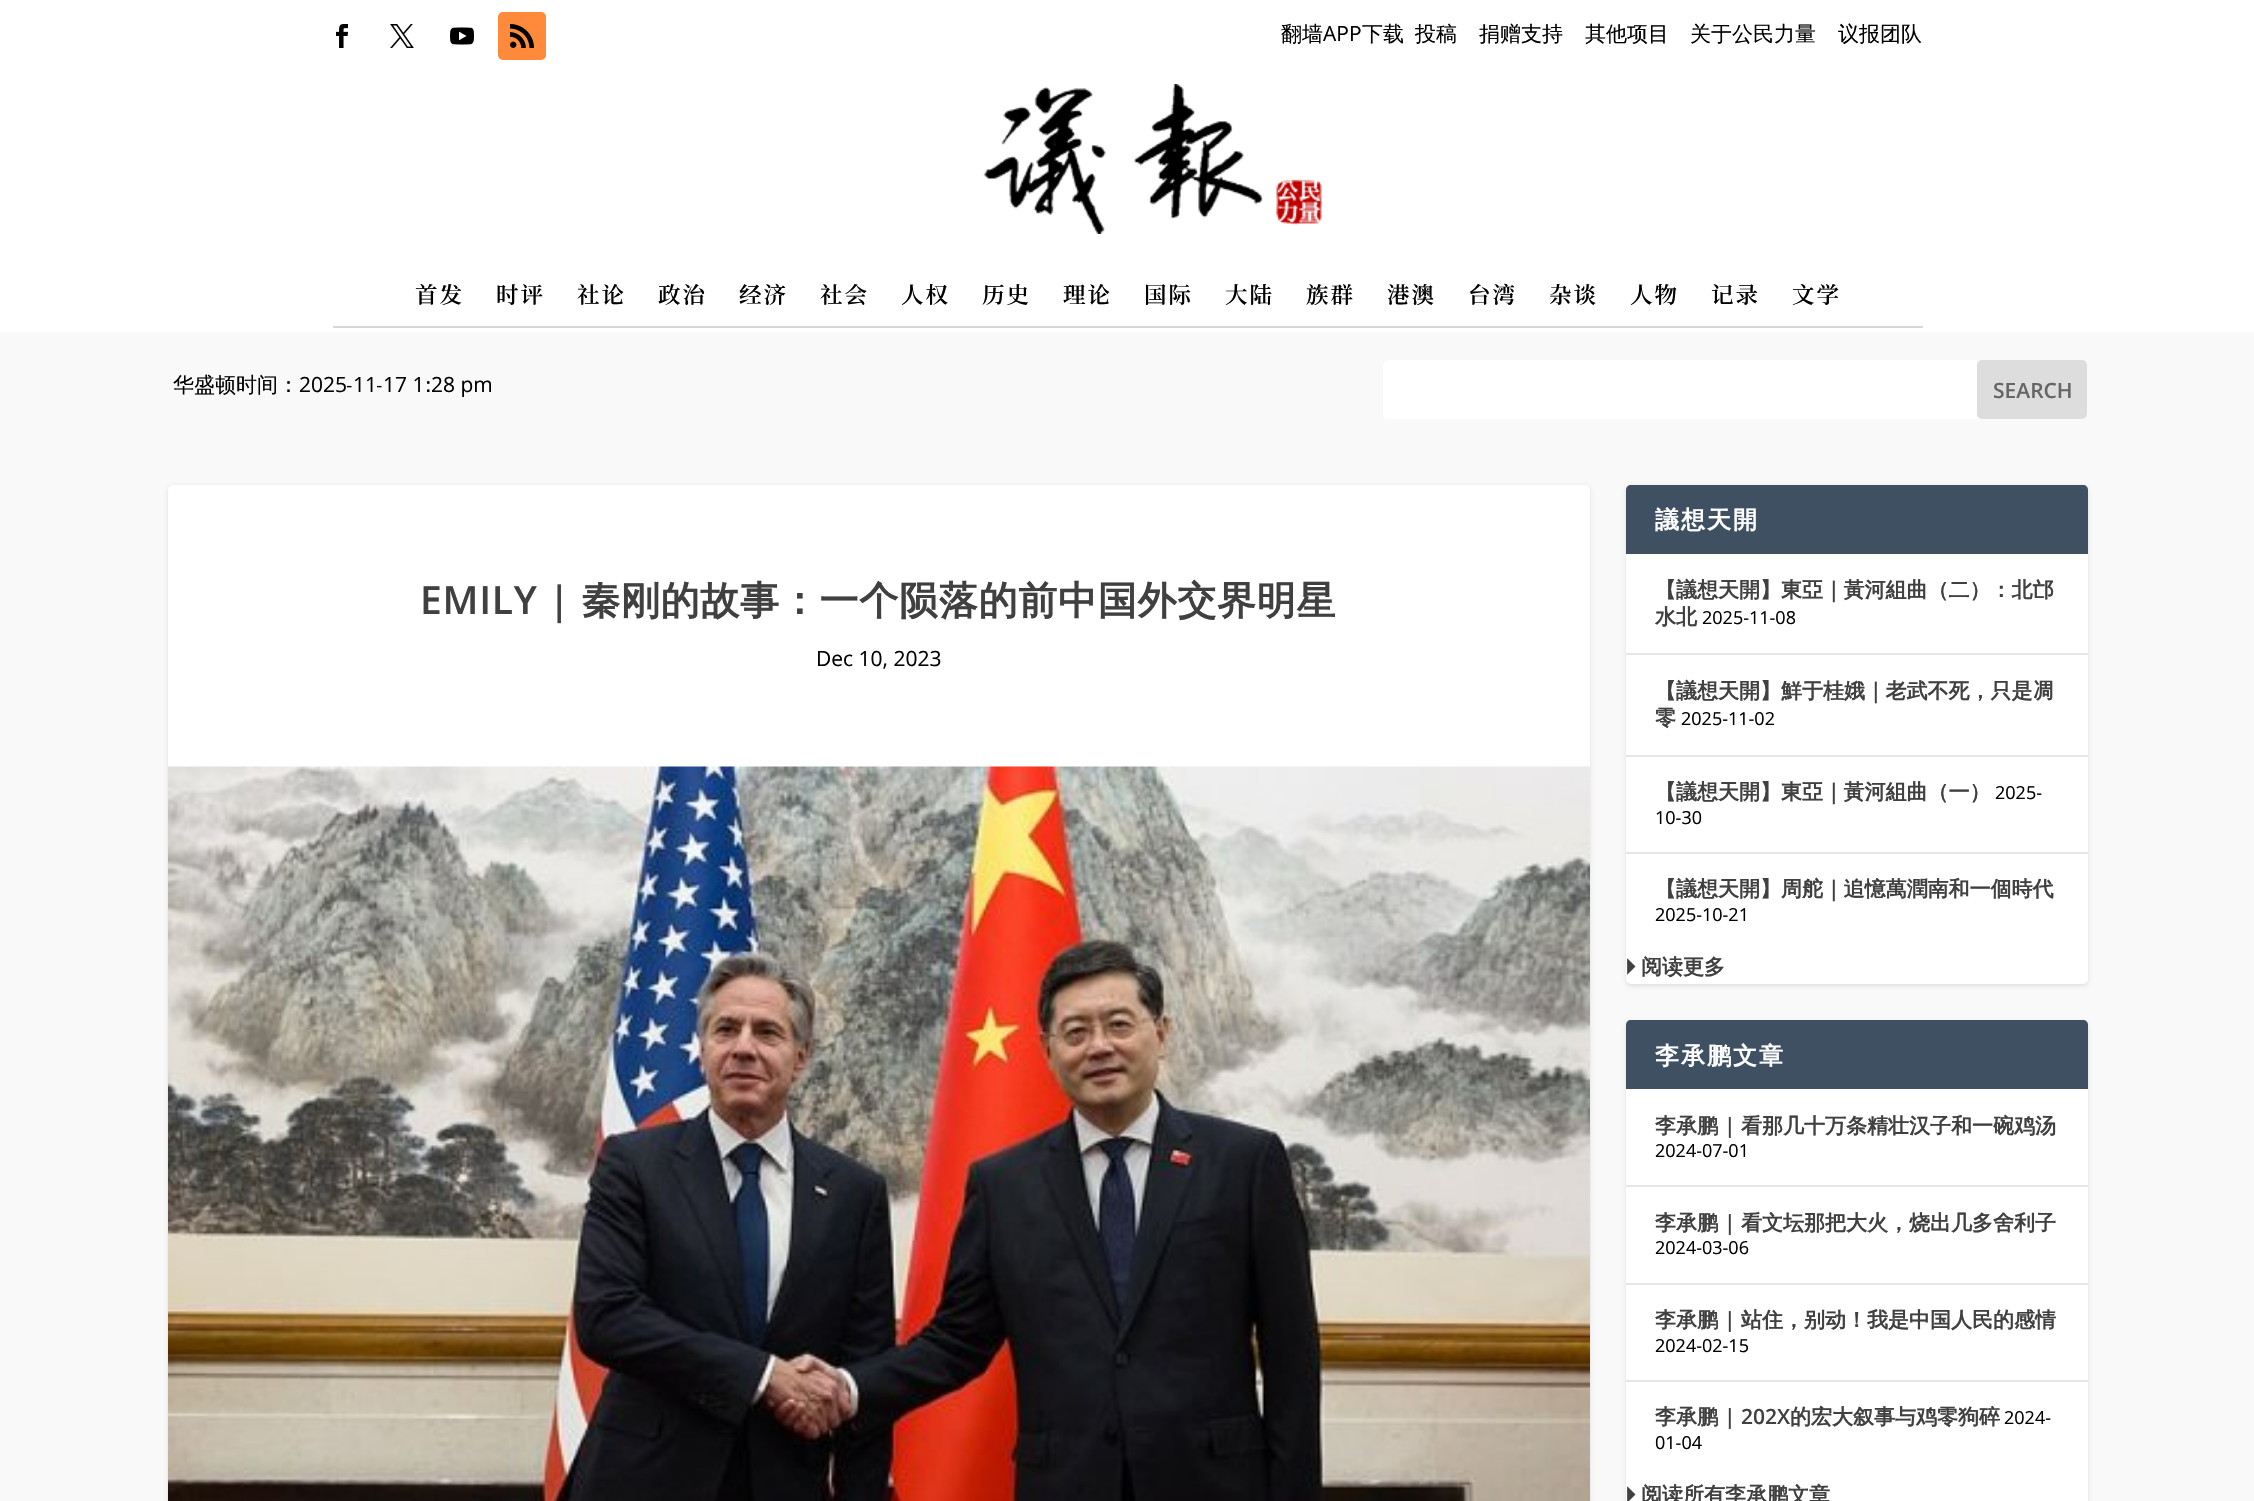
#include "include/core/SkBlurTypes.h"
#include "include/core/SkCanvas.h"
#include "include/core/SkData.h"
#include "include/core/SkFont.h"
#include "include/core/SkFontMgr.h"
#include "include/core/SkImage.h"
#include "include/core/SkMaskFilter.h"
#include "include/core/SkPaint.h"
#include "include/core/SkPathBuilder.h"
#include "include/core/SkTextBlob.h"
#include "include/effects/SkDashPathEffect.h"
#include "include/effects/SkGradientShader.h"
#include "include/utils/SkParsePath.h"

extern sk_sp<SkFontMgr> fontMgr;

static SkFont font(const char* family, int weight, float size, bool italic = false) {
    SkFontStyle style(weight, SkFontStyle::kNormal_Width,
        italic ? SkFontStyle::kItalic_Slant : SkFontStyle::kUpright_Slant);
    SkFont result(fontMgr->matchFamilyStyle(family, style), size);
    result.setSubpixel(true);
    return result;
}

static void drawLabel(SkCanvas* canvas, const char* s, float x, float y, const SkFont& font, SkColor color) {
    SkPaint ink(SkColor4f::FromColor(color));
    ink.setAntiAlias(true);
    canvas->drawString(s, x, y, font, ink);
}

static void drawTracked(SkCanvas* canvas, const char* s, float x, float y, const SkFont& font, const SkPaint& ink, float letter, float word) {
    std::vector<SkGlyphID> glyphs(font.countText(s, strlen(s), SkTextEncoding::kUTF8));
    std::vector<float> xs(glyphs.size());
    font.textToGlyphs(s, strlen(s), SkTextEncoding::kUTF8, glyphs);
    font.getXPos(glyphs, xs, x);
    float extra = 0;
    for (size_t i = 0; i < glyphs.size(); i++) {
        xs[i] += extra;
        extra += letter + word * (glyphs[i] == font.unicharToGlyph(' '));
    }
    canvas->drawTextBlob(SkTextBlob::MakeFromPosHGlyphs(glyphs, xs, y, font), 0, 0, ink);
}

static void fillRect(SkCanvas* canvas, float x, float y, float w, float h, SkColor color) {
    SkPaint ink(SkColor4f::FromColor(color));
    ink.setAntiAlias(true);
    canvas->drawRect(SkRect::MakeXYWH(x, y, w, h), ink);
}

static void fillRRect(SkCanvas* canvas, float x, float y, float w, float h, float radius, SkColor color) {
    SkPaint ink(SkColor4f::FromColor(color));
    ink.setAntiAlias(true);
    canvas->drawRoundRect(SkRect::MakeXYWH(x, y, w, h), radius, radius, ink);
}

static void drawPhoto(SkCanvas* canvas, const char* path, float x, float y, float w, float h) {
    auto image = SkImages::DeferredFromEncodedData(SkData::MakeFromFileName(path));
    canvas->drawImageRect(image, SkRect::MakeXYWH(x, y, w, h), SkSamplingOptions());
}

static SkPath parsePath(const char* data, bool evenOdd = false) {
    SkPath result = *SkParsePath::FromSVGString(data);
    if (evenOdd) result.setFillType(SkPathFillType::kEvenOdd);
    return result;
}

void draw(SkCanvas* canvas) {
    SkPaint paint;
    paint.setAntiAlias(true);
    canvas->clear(0xFFF9F9F9);
    fillRect(canvas, 0, 0, 2254, 332, 0xFFFFFFFF);
    drawPhoto(canvas, "assets/img1.png", 336, 24, 13, 24);
    drawPhoto(canvas, "assets/img2.png", 390, 24, 24, 24);
    drawPhoto(canvas, "assets/img3.png", 450, 27, 24, 18);
    fillRRect(canvas, 498, 12, 48, 48, 5, 0xFFFF8A3C);
    drawPhoto(canvas, "assets/img4.png", 510, 24, 24, 24);
    SkFont font1 = font("WenQuanYi Zen Hei", 500, 21);
    drawLabel(canvas, "翻墙", 1281, 41, font1, 0xFF000000);
    SkFont font2 = font("Open Sans", 400, 21);
    drawLabel(canvas, "APP", 1323, 41, font2, 0xFF000000);
    drawLabel(canvas, "下载", 1362, 41, font1, 0xFF000000);
    drawLabel(canvas, "投稿", 1415, 41, font1, 0xFF000000);
    drawLabel(canvas, "捐赠支持", 1479, 41, font1, 0xFF000000);
    drawLabel(canvas, "其他项目", 1585, 41, font1, 0xFF000000);
    drawLabel(canvas, "关于公民力量", 1690, 41, font1, 0xFF000000);
    drawLabel(canvas, "议报团队", 1838, 41, font1, 0xFF000000);
    drawPhoto(canvas, "assets/img5.png", 983, 84, 339, 150);
    fillRect(canvas, 333, 326, 1590, 2, 0xFFD6D6D6);
    SkFont font3 = font("Noto Serif SC", 600, 22.5f);
    paint.setColor(0xFF000000);
    drawTracked(canvas, "首发", 415, 303, font3, paint, 2, 0);
    drawTracked(canvas, "时评", 496, 303, font3, paint, 2, 0);
    drawTracked(canvas, "社论", 577, 303, font3, paint, 2, 0);
    drawTracked(canvas, "政治", 658, 303, font3, paint, 2, 0);
    drawTracked(canvas, "经济", 739, 303, font3, paint, 2, 0);
    drawTracked(canvas, "社会", 820, 303, font3, paint, 2, 0);
    drawTracked(canvas, "人权", 901, 303, font3, paint, 2, 0);
    drawTracked(canvas, "历史", 982, 303, font3, paint, 2, 0);
    drawTracked(canvas, "理论", 1063, 303, font3, paint, 2, 0);
    drawTracked(canvas, "国际", 1144, 303, font3, paint, 2, 0);
    drawTracked(canvas, "大陆", 1225, 303, font3, paint, 2, 0);
    drawTracked(canvas, "族群", 1306, 303, font3, paint, 2, 0);
    drawTracked(canvas, "港澳", 1387, 303, font3, paint, 2, 0);
    drawTracked(canvas, "台湾", 1468, 303, font3, paint, 2, 0);
    drawTracked(canvas, "杂谈", 1549, 303, font3, paint, 2, 0);
    drawTracked(canvas, "人物", 1630, 303, font3, paint, 2, 0);
    drawTracked(canvas, "记录", 1711, 303, font3, paint, 2, 0);
    drawTracked(canvas, "文学", 1792, 303, font3, paint, 2, 0);
    drawLabel(canvas, "华盛顿时间：", 173, 392, font1, 0xFF000000);
    drawLabel(canvas, "2025", 299, 392, font2, 0xFF000000);
    drawLabel(canvas, "-", 347, 392, font1, 0xFF000000);
    drawLabel(canvas, "11", 353, 392, font2, 0xFF000000);
    drawLabel(canvas, "-", 377, 392, font1, 0xFF000000);
    drawLabel(canvas, "17 1", 383, 392, font2, 0xFF000000);
    drawLabel(canvas, ":", 425, 392, font1, 0xFF000000);
    drawLabel(canvas, "28 pm", 431, 392, font2, 0xFF000000);
    fillRRect(canvas, 1383, 360, 704, 59, 5, 0xFFFFFFFF);
    fillRRect(canvas, 1977, 360, 110, 59, 5, 0xFFDDDDDD);
    SkFont font4 = font("Open Sans", 600, 21);
    drawLabel(canvas, "SEARCH", 1993, 398, font4, 0xFF666666);
    paint.setColor(0x1A000000);
    paint.setMaskFilter(SkMaskFilter::MakeBlur(kNormal_SkBlurStyle, 2));
    canvas->drawRoundRect(SkRect::MakeXYWH(168, 486, 1422, 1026), 5, 5, paint);
    paint.setMaskFilter(nullptr);
    fillRRect(canvas, 168, 485, 1422, 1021, 5, 0xFFFFFFFF);
    SkFont font5 = font("Open Sans", 600, 39);
    paint.setColor(0xFF404040);
    drawTracked(canvas, "EMILY |", 420, 614, font5, paint, 0.75f, 0);
    SkFont font6 = font("WenQuanYi Zen Hei", 700, 39);
    drawTracked(canvas, "秦刚的故事：一个陨落的前中国外交界明星", 581, 614, font6, paint, 0.75f, 0);
    drawLabel(canvas, "Dec 10, 2023", 816, 666, font2, 0xFF000000);
    drawPhoto(canvas, "assets/img6.png", 168, 766, 1422, 735);
    paint.setColor(0x1A000000);
    paint.setMaskFilter(SkMaskFilter::MakeBlur(kNormal_SkBlurStyle, 2));
    canvas->drawRoundRect(SkRect::MakeXYWH(1626, 486, 462, 500), 5, 5, paint);
    paint.setMaskFilter(nullptr);
    fillRRect(canvas, 1626, 485, 462, 499, 5, 0xFFFFFFFF);
    paint.setColor(0xFF3E5062);
    canvas->drawPath(parsePath("M1631 485H2083C2086 485 2088 487 2088 490V554H1626V490C1626 487 1628 485 1631 485Z"), paint);
    SkFont font7 = font("WenQuanYi Zen Hei", 700, 24);
    paint.setColor(0xFFFFFFFF);
    drawTracked(canvas, "議想天開", 1655, 528, font7, paint, 2, 0);
    fillRect(canvas, 1626, 653, 462, 2, 0xFFE6E6E6);
    SkFont font8 = font("WenQuanYi Zen Hei", 700, 21);
    drawLabel(canvas, "【議想天開】東亞｜黃河組曲（二）：北邙", 1655, 597, font8, 0xFF404040);
    drawLabel(canvas, "水北", 1655, 624, font8, 0xFF404040);
    SkFont font9 = font("Open Sans", 400, 18);
    drawLabel(canvas, "2025-11-08", 1702, 624, font9, 0xFF000000);
    fillRect(canvas, 1626, 755, 462, 2, 0xFFE6E6E6);
    drawLabel(canvas, "【議想天開】鮮于桂娥｜老武不死，只是凋", 1655, 698, font8, 0xFF404040);
    drawLabel(canvas, "零", 1655, 725, font8, 0xFF404040);
    drawLabel(canvas, "2025-11-02", 1681, 725, font9, 0xFF000000);
    fillRect(canvas, 1626, 852, 462, 2, 0xFFE6E6E6);
    drawLabel(canvas, "【議想天開】東亞｜黃河組曲（一）", 1655, 799, font8, 0xFF404040);
    drawLabel(canvas, "2025-", 1995, 799, font9, 0xFF000000);
    drawLabel(canvas, "10-30", 1655, 824, font9, 0xFF000000);
    drawLabel(canvas, "【議想天開】周舵｜追憶萬潤南和一個時代", 1655, 896, font8, 0xFF404040);
    drawLabel(canvas, "2025-10-21", 1655, 921, font9, 0xFF000000);
    SkFont font10 = font("FreeSans", 700, 21);
    drawLabel(canvas, "⏵", 1625, 974, font10, 0xFF404040);
    drawLabel(canvas, "阅读更多", 1641, 974, font8, 0xFF404040);
    paint.setColor(0x1A000000);
    paint.setMaskFilter(SkMaskFilter::MakeBlur(kNormal_SkBlurStyle, 2));
    canvas->drawRoundRect(SkRect::MakeXYWH(1626, 1022, 462, 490), 5, 5, paint);
    paint.setMaskFilter(nullptr);
    fillRRect(canvas, 1626, 1020, 462, 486, 5, 0xFFFFFFFF);
    paint.setColor(0xFF3E5062);
    canvas->drawPath(parsePath("M1631 1020H2083C2086 1020 2088 1022 2088 1025V1089H1626V1025C1626 1022 1628 1020 1631 1020Z"), paint);
    paint.setColor(0xFFFFFFFF);
    drawTracked(canvas, "李承鹏文章", 1655, 1064, font7, paint, 2, 0);
    fillRect(canvas, 1626, 1185, 462, 2, 0xFFE6E6E6);
    drawLabel(canvas, "李承鹏", 1655, 1133, font8, 0xFF404040);
    drawLabel(canvas, "|", 1724, 1133, font4, 0xFF404040);
    drawLabel(canvas, "看那几十万条精壮汉子和一碗鸡汤", 1741, 1133, font8, 0xFF404040);
    drawLabel(canvas, "2024-07-01", 1655, 1157, font9, 0xFF000000);
    fillRect(canvas, 1626, 1283, 462, 2, 0xFFE6E6E6);
    drawLabel(canvas, "李承鹏", 1655, 1230, font8, 0xFF404040);
    drawLabel(canvas, "|", 1724, 1230, font4, 0xFF404040);
    drawLabel(canvas, "看文坛那把大火，烧出几多舍利子", 1741, 1230, font8, 0xFF404040);
    drawLabel(canvas, "2024-03-06", 1655, 1254, font9, 0xFF000000);
    fillRect(canvas, 1626, 1380, 462, 2, 0xFFE6E6E6);
    drawLabel(canvas, "李承鹏", 1655, 1327, font8, 0xFF404040);
    drawLabel(canvas, "|", 1724, 1327, font4, 0xFF404040);
    drawLabel(canvas, "站住，别动！我是中国人民的感情", 1741, 1327, font8, 0xFF404040);
    drawLabel(canvas, "2024-02-15", 1655, 1352, font9, 0xFF000000);
    drawLabel(canvas, "李承鹏", 1655, 1424, font8, 0xFF404040);
    drawLabel(canvas, "| 202X", 1724, 1424, font4, 0xFF404040);
    drawLabel(canvas, "的宏大叙事与鸡零狗碎", 1790, 1424, font8, 0xFF404040);
    drawLabel(canvas, "2024-", 2004, 1424, font9, 0xFF000000);
    drawLabel(canvas, "01-04", 1655, 1449, font9, 0xFF000000);
    drawLabel(canvas, "⏵", 1625, 1502, font10, 0xFF404040);
    drawLabel(canvas, "阅读所有李承鹏文章", 1641, 1502, font8, 0xFF404040);
}
